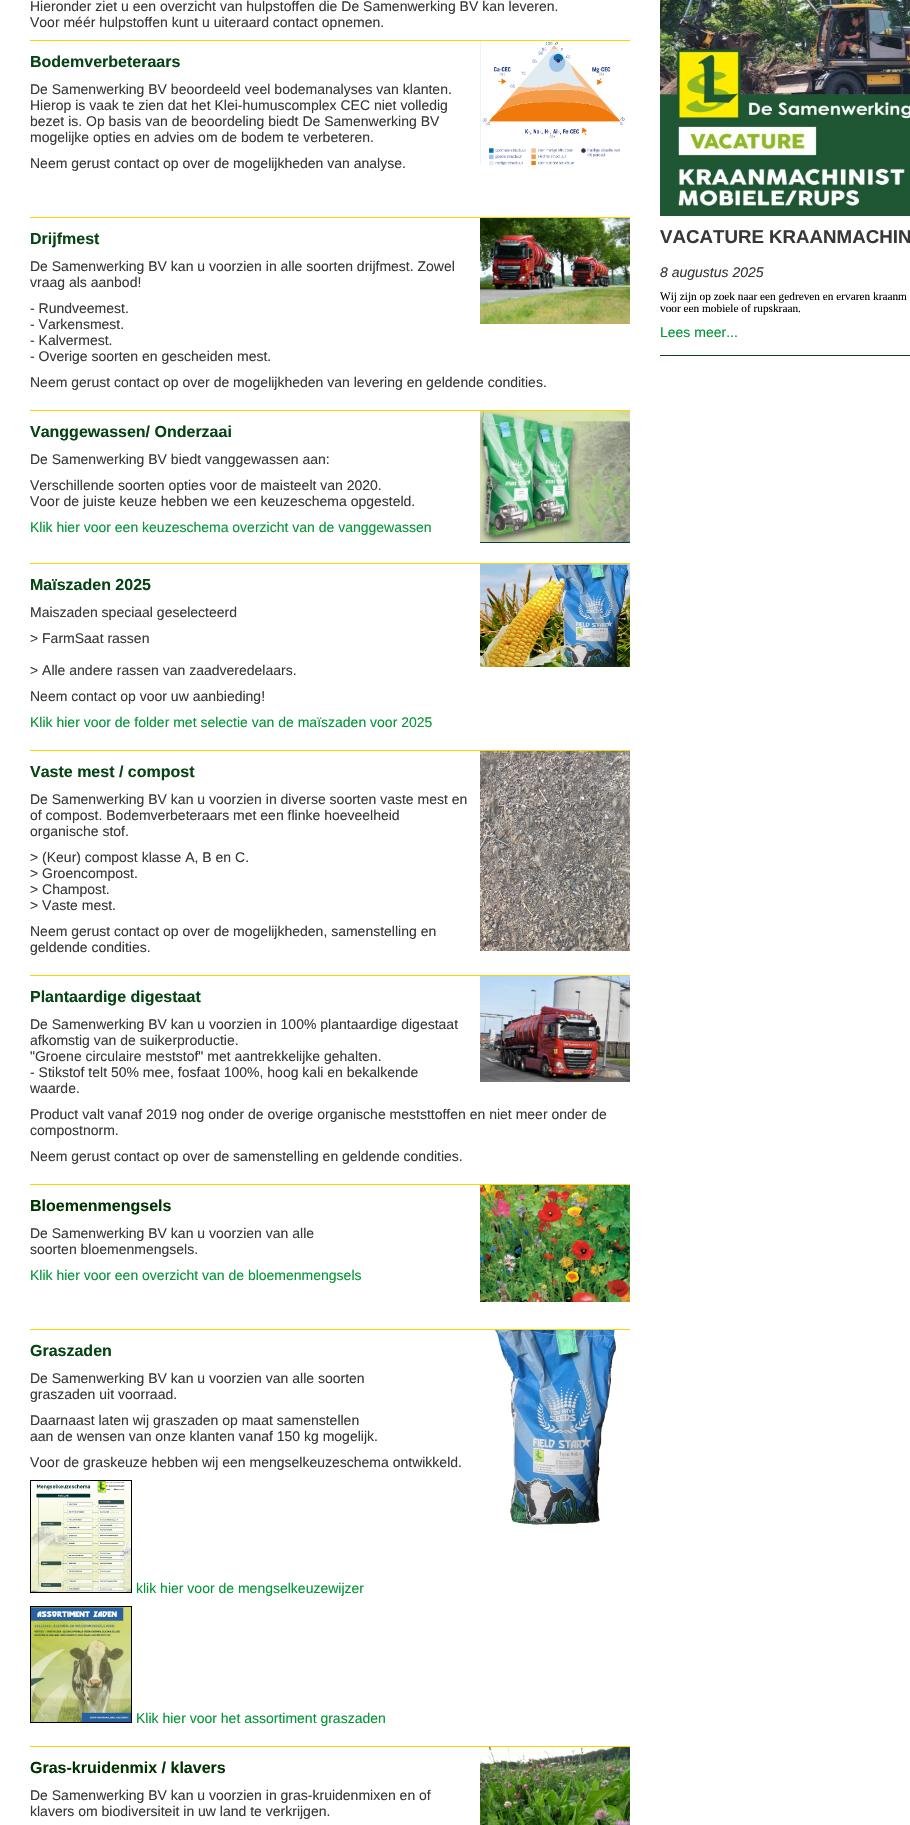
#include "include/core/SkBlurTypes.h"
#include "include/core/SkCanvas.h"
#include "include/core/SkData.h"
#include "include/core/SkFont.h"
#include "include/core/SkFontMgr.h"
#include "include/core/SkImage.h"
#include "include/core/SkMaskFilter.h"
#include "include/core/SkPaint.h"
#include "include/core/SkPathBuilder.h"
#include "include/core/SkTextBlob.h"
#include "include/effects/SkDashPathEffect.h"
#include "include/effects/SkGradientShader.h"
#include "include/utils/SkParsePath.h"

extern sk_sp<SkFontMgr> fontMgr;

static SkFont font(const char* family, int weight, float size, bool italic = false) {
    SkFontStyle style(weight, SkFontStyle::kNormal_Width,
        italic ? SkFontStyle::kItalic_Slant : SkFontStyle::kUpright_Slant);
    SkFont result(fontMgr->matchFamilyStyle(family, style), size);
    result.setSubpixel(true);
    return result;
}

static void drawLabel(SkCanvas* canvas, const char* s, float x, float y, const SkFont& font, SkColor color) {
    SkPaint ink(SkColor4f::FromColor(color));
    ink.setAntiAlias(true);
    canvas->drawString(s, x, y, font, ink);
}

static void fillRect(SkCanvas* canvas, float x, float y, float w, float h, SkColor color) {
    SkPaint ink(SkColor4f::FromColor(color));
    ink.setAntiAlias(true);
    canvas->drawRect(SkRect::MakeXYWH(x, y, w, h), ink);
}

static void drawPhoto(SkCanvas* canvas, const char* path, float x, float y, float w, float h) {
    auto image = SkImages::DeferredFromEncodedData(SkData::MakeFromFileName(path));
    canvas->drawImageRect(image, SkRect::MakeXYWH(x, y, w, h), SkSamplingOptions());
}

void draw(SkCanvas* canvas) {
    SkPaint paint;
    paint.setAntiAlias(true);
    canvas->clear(0xFFFFFFFF);
    SkFont font1 = font("Liberation Sans", 400, 14);
    drawLabel(canvas, "Hieronder ziet u een overzicht van hulpstoffen die De Samenwerking BV kan leveren.", 30, 11, font1, 0xFF38373A);
    drawLabel(canvas, "Voor méér hulpstoffen kunt u uiteraard contact opnemen.", 30, 27, font1, 0xFF38373A);
    fillRect(canvas, 30, 40, 600, 1, 0xFFFFD300);
    SkFont font2 = font("Liberation Sans", 700, 16);
    drawLabel(canvas, "Bodemverbeteraars", 30, 67, font2, 0xFF064413);
    drawPhoto(canvas, "assets/img1.png", 480, 41, 145, 124);
    drawLabel(canvas, "De Samenwerking BV beoordeeld veel bodemanalyses van klanten.", 30, 94, font1, 0xFF38373A);
    drawLabel(canvas, "Hierop is vaak te zien dat het Klei-humuscomplex CEC niet volledig", 30, 110, font1, 0xFF38373A);
    drawLabel(canvas, "bezet is. Op basis van de beoordeling biedt De Samenwerking BV", 30, 126, font1, 0xFF38373A);
    drawLabel(canvas, "mogelijke opties en advies om de bodem te verbeteren.", 30, 142, font1, 0xFF38373A);
    drawLabel(canvas, "Neem gerust contact op over de mogelijkheden van analyse.", 30, 168, font1, 0xFF38373A);
    fillRect(canvas, 30, 217, 600, 1, 0xFFFFD300);
    drawLabel(canvas, "Drijfmest", 30, 244, font2, 0xFF064413);
    drawPhoto(canvas, "assets/img2.png", 480, 218, 150, 106);
    drawLabel(canvas, "De Samenwerking BV kan u voorzien in alle soorten drijfmest. Zowel", 30, 271, font1, 0xFF38373A);
    drawLabel(canvas, "vraag als aanbod!", 30, 287, font1, 0xFF38373A);
    drawLabel(canvas, "- Rundveemest.", 30, 313, font1, 0xFF38373A);
    drawLabel(canvas, "- Varkensmest.", 30, 329, font1, 0xFF38373A);
    drawLabel(canvas, "- Kalvermest.", 30, 345, font1, 0xFF38373A);
    drawLabel(canvas, "- Overige soorten en gescheiden mest.", 30, 361, font1, 0xFF38373A);
    drawLabel(canvas, "Neem gerust contact op over de mogelijkheden van levering en geldende condities.", 30, 387, font1, 0xFF38373A);
    fillRect(canvas, 30, 410, 600, 1, 0xFFFFD300);
    drawLabel(canvas, "Vanggewassen/ Onderzaai", 30, 437, font2, 0xFF064413);
    drawPhoto(canvas, "assets/img3.png", 480, 411, 150, 132);
    drawLabel(canvas, "De Samenwerking BV biedt vanggewassen aan:", 30, 464, font1, 0xFF38373A);
    drawLabel(canvas, "Verschillende soorten opties voor de maisteelt van 2020.", 30, 490, font1, 0xFF38373A);
    drawLabel(canvas, "Voor de juiste keuze hebben we een keuzeschema opgesteld.", 30, 506, font1, 0xFF38373A);
    drawLabel(canvas, "Klik hier voor een keuzeschema overzicht van de vanggewassen", 30, 532, font1, 0xFF019535);
    fillRect(canvas, 30, 563, 600, 1, 0xFFFFD300);
    drawLabel(canvas, "Maïszaden 2025", 30, 590, font2, 0xFF064413);
    drawPhoto(canvas, "assets/img4.png", 480, 564, 150, 103);
    drawLabel(canvas, "Maiszaden speciaal geselecteerd", 30, 617, font1, 0xFF38373A);
    drawLabel(canvas, "> FarmSaat rassen", 30, 643, font1, 0xFF38373A);
    drawLabel(canvas, "> Alle andere rassen van zaadveredelaars.", 30, 675, font1, 0xFF38373A);
    drawLabel(canvas, "Neem contact op voor uw aanbieding!", 30, 701, font1, 0xFF38373A);
    drawLabel(canvas, "Klik hier voor de folder met selectie van de maïszaden voor 2025", 30, 727, font1, 0xFF019535);
    fillRect(canvas, 30, 750, 600, 1, 0xFFFFD300);
    drawLabel(canvas, "Vaste mest / compost", 30, 777, font2, 0xFF064413);
    drawPhoto(canvas, "assets/img5.png", 480, 751, 150, 200);
    drawLabel(canvas, "De Samenwerking BV kan u voorzien in diverse soorten vaste mest en", 30, 804, font1, 0xFF38373A);
    drawLabel(canvas, "of compost. Bodemverbeteraars met een flinke hoeveelheid", 30, 820, font1, 0xFF38373A);
    drawLabel(canvas, "organische stof.", 30, 836, font1, 0xFF38373A);
    drawLabel(canvas, "> (Keur) compost klasse A, B en C.", 30, 862, font1, 0xFF38373A);
    drawLabel(canvas, "> Groencompost.", 30, 878, font1, 0xFF38373A);
    drawLabel(canvas, "> Champost.", 30, 894, font1, 0xFF38373A);
    drawLabel(canvas, "> Vaste mest.", 30, 910, font1, 0xFF38373A);
    drawLabel(canvas, "Neem gerust contact op over de mogelijkheden, samenstelling en", 30, 936, font1, 0xFF38373A);
    drawLabel(canvas, "geldende condities.", 30, 952, font1, 0xFF38373A);
    fillRect(canvas, 30, 975, 600, 1, 0xFFFFD300);
    drawLabel(canvas, "Plantaardige digestaat", 30, 1002, font2, 0xFF064413);
    drawPhoto(canvas, "assets/img6.png", 480, 976, 150, 106);
    drawLabel(canvas, "De Samenwerking BV kan u voorzien in 100% plantaardige digestaat", 30, 1029, font1, 0xFF38373A);
    drawLabel(canvas, "afkomstig van de suikerproductie.", 30, 1045, font1, 0xFF38373A);
    drawLabel(canvas, "\"Groene circulaire meststof\" met aantrekkelijke gehalten.", 30, 1061, font1, 0xFF38373A);
    drawLabel(canvas, "- Stikstof telt 50% mee, fosfaat 100%, hoog kali en bekalkende", 30, 1077, font1, 0xFF38373A);
    drawLabel(canvas, "waarde.", 30, 1093, font1, 0xFF38373A);
    drawLabel(canvas, "Product valt vanaf 2019 nog onder de overige organische meststtoffen en niet meer onder de", 30, 1119, font1, 0xFF38373A);
    drawLabel(canvas, "compostnorm.", 30, 1135, font1, 0xFF38373A);
    drawLabel(canvas, "Neem gerust contact op over de samenstelling en geldende condities.", 30, 1161, font1, 0xFF38373A);
    fillRect(canvas, 30, 1184, 600, 1, 0xFFFFD300);
    drawLabel(canvas, "Bloemenmengsels", 30, 1211, font2, 0xFF003300);
    drawPhoto(canvas, "assets/img7.png", 480, 1185, 150, 117);
    drawLabel(canvas, "De Samenwerking BV kan u voorzien van alle", 30, 1238, font1, 0xFF38373A);
    drawLabel(canvas, "soorten bloemenmengsels.", 30, 1254, font1, 0xFF38373A);
    drawLabel(canvas, "Klik hier voor een overzicht van de bloemenmengsels", 30, 1280, font1, 0xFF019535);
    fillRect(canvas, 30, 1329, 600, 1, 0xFFFFD300);
    drawLabel(canvas, "Graszaden", 30, 1356, font2, 0xFF064413);
    drawPhoto(canvas, "assets/img8.png", 480, 1330, 136, 195);
    drawLabel(canvas, "De Samenwerking BV kan u voorzien van alle soorten", 30, 1383, font1, 0xFF38373A);
    drawLabel(canvas, "graszaden uit voorraad.", 30, 1399, font1, 0xFF38373A);
    drawLabel(canvas, "Daarnaast laten wij graszaden op maat samenstellen", 30, 1425, font1, 0xFF38373A);
    drawLabel(canvas, "aan de wensen van onze klanten vanaf 150 kg mogelijk.", 30, 1441, font1, 0xFF38373A);
    drawLabel(canvas, "Voor de graskeuze hebben wij een mengselkeuzeschema ontwikkeld.", 30, 1467, font1, 0xFF38373A);
    paint.setStroke(true);
    paint.setStrokeWidth(1);
    paint.setColor(0xFF000000);
    canvas->drawRect(SkRect::MakeXYWH(30.5f, 1480.5f, 101, 112), paint);
    drawPhoto(canvas, "assets/img9.png", 31, 1481, 100, 111);
    drawLabel(canvas, "klik hier voor de mengselkeuzewijzer", 136, 1593, font1, 0xFF019535);
    canvas->drawRect(SkRect::MakeXYWH(30.5f, 1606.5f, 101, 116), paint);
    drawPhoto(canvas, "assets/img10.png", 31, 1607, 100, 115);
    drawLabel(canvas, "Klik hier voor het assortiment graszaden", 136, 1723, font1, 0xFF019535);
    fillRect(canvas, 30, 1746, 600, 1, 0xFFFFD300);
    drawLabel(canvas, "Gras-kruidenmix / klavers", 30, 1773, font2, 0xFF003300);
    drawPhoto(canvas, "assets/img11.png", 480, 1747, 150, 78);
    drawLabel(canvas, "De Samenwerking BV kan u voorzien in gras-kruidenmixen en of", 30, 1800, font1, 0xFF38373A);
    drawLabel(canvas, "klavers om biodiversiteit in uw land te verkrijgen.", 30, 1816, font1, 0xFF38373A);
    fillRect(canvas, 660, 355, 250, 1, 0xFF064413);
    drawPhoto(canvas, "assets/img12.png", 660, 0, 250, 216);
    SkFont font3 = font("Liberation Sans", 700, 18.7f);
    drawLabel(canvas, "VACATURE KRAANMACHIN", 660, 243, font3, 0xFF38373A);
    SkFont font4 = font("Liberation Sans", 400, 14, true);
    drawLabel(canvas, "8 augustus 2025", 660, 277, font4, 0xFF38373A);
    SkFont font5 = font("Liberation Serif", 400, 11.3f);
    drawLabel(canvas, "Wij zijn op zoek naar een gedreven en ervaren kraanm", 660, 300, font5, 0xFF000000);
    drawLabel(canvas, "voor een mobiele of rupskraan.", 660, 312, font5, 0xFF000000);
    drawLabel(canvas, "Lees meer...", 660, 337, font1, 0xFF019535);
}
